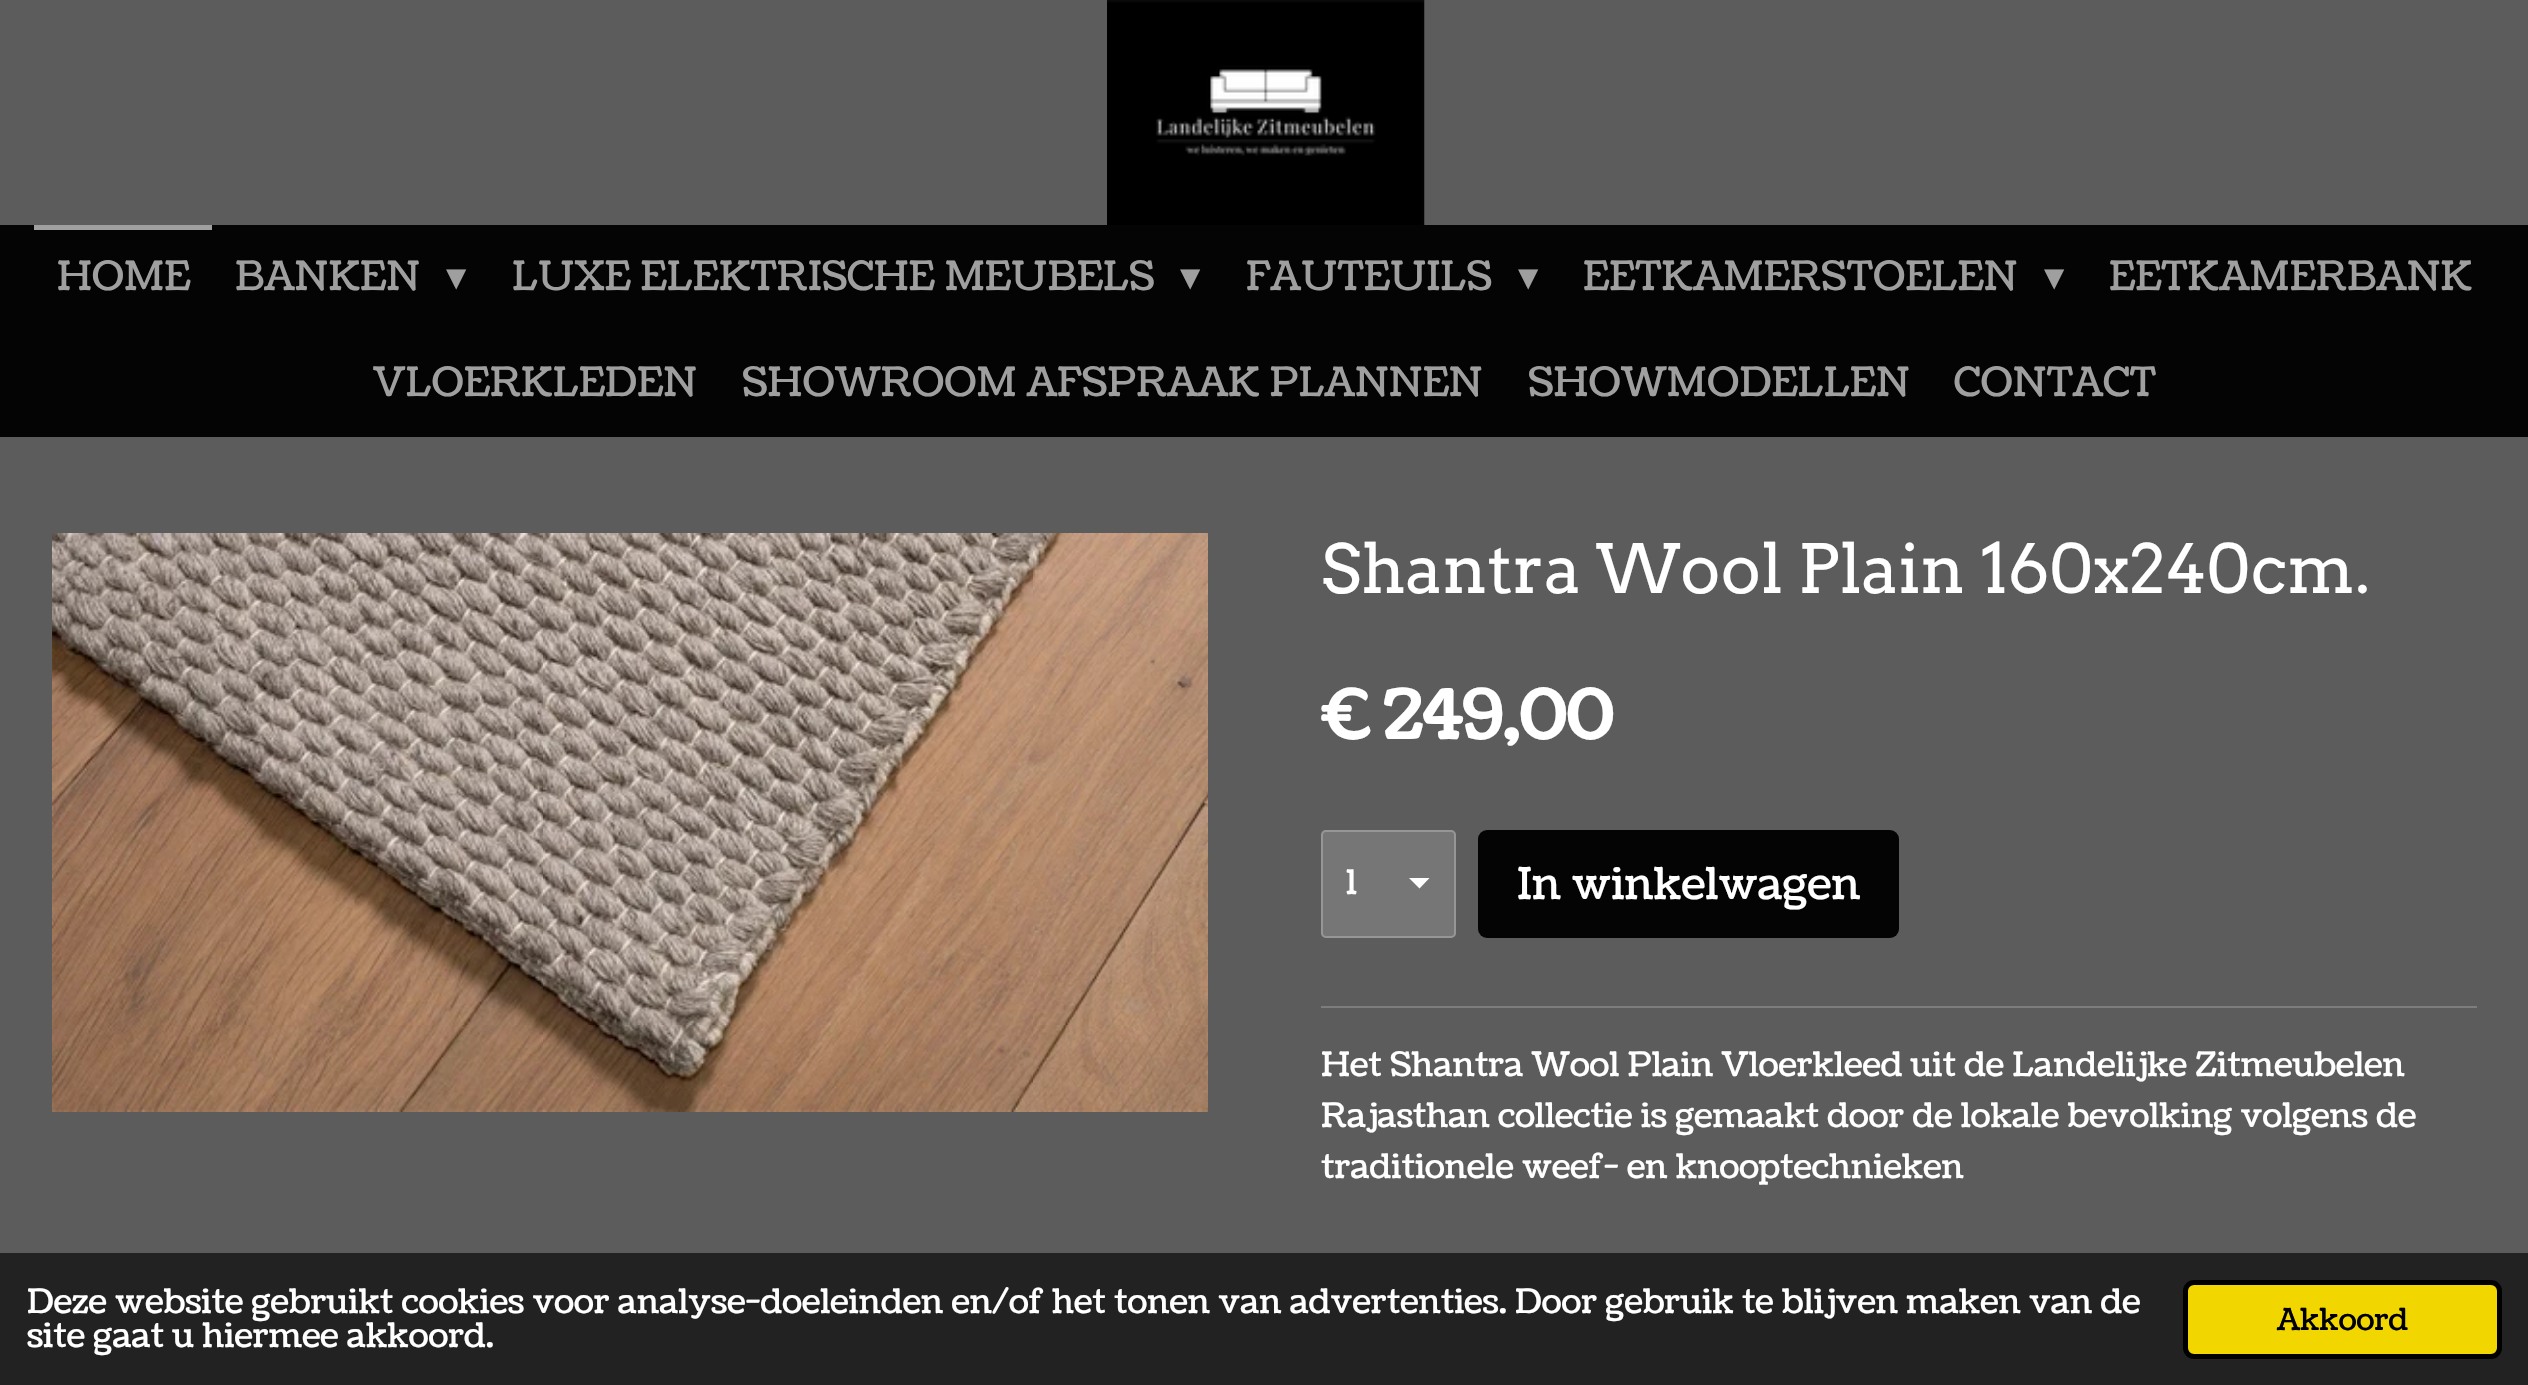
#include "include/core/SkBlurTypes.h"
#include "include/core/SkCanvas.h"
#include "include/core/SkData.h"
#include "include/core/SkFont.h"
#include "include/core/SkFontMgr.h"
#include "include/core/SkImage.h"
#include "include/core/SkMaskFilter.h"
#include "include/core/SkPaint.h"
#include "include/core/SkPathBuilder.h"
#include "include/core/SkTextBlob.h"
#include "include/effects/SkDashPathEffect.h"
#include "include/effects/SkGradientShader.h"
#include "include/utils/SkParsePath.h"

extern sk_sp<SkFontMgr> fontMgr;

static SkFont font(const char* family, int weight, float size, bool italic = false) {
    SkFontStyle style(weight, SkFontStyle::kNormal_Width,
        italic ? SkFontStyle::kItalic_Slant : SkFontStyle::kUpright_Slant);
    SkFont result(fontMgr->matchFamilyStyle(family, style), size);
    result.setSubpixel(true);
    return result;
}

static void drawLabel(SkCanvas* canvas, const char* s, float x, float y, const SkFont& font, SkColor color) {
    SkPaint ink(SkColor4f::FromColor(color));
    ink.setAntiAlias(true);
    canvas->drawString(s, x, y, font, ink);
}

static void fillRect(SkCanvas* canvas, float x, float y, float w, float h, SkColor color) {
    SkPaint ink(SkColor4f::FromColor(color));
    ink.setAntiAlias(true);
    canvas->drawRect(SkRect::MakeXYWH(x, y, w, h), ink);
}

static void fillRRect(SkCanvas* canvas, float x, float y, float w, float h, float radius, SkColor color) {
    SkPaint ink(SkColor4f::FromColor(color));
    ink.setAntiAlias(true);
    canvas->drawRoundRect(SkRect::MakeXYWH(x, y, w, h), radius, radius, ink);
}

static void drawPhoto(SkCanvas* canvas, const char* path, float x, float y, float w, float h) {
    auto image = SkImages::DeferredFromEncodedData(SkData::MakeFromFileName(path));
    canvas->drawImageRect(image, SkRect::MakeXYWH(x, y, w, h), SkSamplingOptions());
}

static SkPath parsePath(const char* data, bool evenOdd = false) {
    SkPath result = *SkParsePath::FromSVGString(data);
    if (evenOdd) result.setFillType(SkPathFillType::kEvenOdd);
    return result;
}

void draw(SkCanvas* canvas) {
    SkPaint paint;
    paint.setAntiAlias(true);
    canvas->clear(0xFF5C5C5C);
    drawPhoto(canvas, "assets/img1.png", 1107, 0, 318, 225);
    fillRect(canvas, 0, 225, 2528, 212, 0xFF040404);
    fillRect(canvas, 34, 225, 178, 5, 0xFF9F9F9F);
    SkFont font1 = font("Coustard", 400, 40.5f);
    drawLabel(canvas, "HOME", 57, 290, font1, 0xFF9F9F9F);
    drawLabel(canvas, "BANKEN", 235, 290, font1, 0xFF9F9F9F);
    SkFont font2 = font("DejaVu Sans", 400, 40.5f);
    drawLabel(canvas, "▾", 446, 290, font2, 0xFF9F9F9F);
    drawLabel(canvas, "LUXE ELEKTRISCHE MEUBELS", 512, 290, font1, 0xFF9F9F9F);
    drawLabel(canvas, "▾", 1180, 290, font2, 0xFF9F9F9F);
    drawLabel(canvas, "FAUTEUILS", 1246, 290, font1, 0xFF9F9F9F);
    drawLabel(canvas, "▾", 1518, 290, font2, 0xFF9F9F9F);
    drawLabel(canvas, "EETKAMERSTOELEN", 1583, 290, font1, 0xFF9F9F9F);
    drawLabel(canvas, "▾", 2044, 290, font2, 0xFF9F9F9F);
    drawLabel(canvas, "EETKAMERBANK", 2109, 290, font1, 0xFF9F9F9F);
    drawLabel(canvas, "VLOERKLEDEN", 373, 396, font1, 0xFF9F9F9F);
    drawLabel(canvas, "SHOWROOM AFSPRAAK PLANNEN", 742, 396, font1, 0xFF9F9F9F);
    drawLabel(canvas, "SHOWMODELLEN", 1528, 396, font1, 0xFF9F9F9F);
    drawLabel(canvas, "CONTACT", 1954, 396, font1, 0xFF9F9F9F);
    drawPhoto(canvas, "assets/img2.png", 52, 533, 1156, 579);
    SkFont font3 = font("Arvo", 400, 67.5f);
    drawLabel(canvas, "Shantra Wool Plain 160x240cm.", 1321, 593, font3, 0xFFFFFFFF);
    SkFont font4 = font("Coustard", 700, 67.5f);
    drawLabel(canvas, "€", 1321, 739, font4, 0xFFFFFFFF);
    drawLabel(canvas, "249,00", 1383, 739, font4, 0xFFFFFFFF);
    fillRRect(canvas, 1321, 830, 135, 108, 5, 0xFF767676);
    paint.setColor(0xFFFFFFFF);
    canvas->drawPath(parsePath("M1419.5 888.5L1409 878H1429.5Z"), paint);
    paint.setStroke(true);
    paint.setStrokeWidth(2);
    paint.setColor(0x80B5B5B5);
    canvas->drawRoundRect(SkRect::MakeXYWH(1322, 831, 133, 106), 4, 4, paint);
    SkFont font5 = font("Coustard", 400, 33.75f);
    drawLabel(canvas, "1", 1346, 894, font5, 0xFFFFFFFF);
    fillRRect(canvas, 1478, 830, 421, 108, 9, 0xFF040404);
    SkFont font6 = font("Coustard", 400, 44);
    drawLabel(canvas, "In winkelwagen", 1517, 899, font6, 0xFFFFFFFF);
    fillRect(canvas, 1321, 1006, 1156, 2, 0xFF7D7D7D);
    drawLabel(canvas, "Het Shantra Wool Plain Vloerkleed uit de Landelijke Zitmeubelen", 1321, 1076, font5, 0xFFFFFFFF);
    drawLabel(canvas, "Rajasthan collectie is gemaakt door de lokale bevolking volgens de", 1321, 1127, font5, 0xFFFFFFFF);
    drawLabel(canvas, "traditionele weef- en knooptechnieken", 1321, 1178, font5, 0xFFFFFFFF);
    fillRect(canvas, 0, 1253, 2528, 132, 0xFF222222);
    drawLabel(canvas, "Deze website gebruikt cookies voor analyse-doeleinden en/of het tonen van advertenties. Door gebruik te blijven maken van de", 27, 1313, font5, 0xFFFFFFFF);
    drawLabel(canvas, "site gaat u hiermee akkoord.", 27, 1347, font5, 0xFFFFFFFF);
    paint.setStroke(false);
    paint.setColor(0xFFF1D600);
    canvas->drawRoundRect(SkRect::MakeXYWH(2185.5f, 1282.5f, 314, 74), 8.5f, 8.5f, paint);
    paint.setStroke(true);
    paint.setStrokeWidth(5);
    paint.setColor(0xFF000000);
    canvas->drawRoundRect(SkRect::MakeXYWH(2185.5f, 1282.5f, 314, 74), 8.5f, 8.5f, paint);
    SkFont font7 = font("Coustard", 400, 30.5f);
    drawLabel(canvas, "Akkoord", 2277, 1330, font7, 0xFF000000);
}
